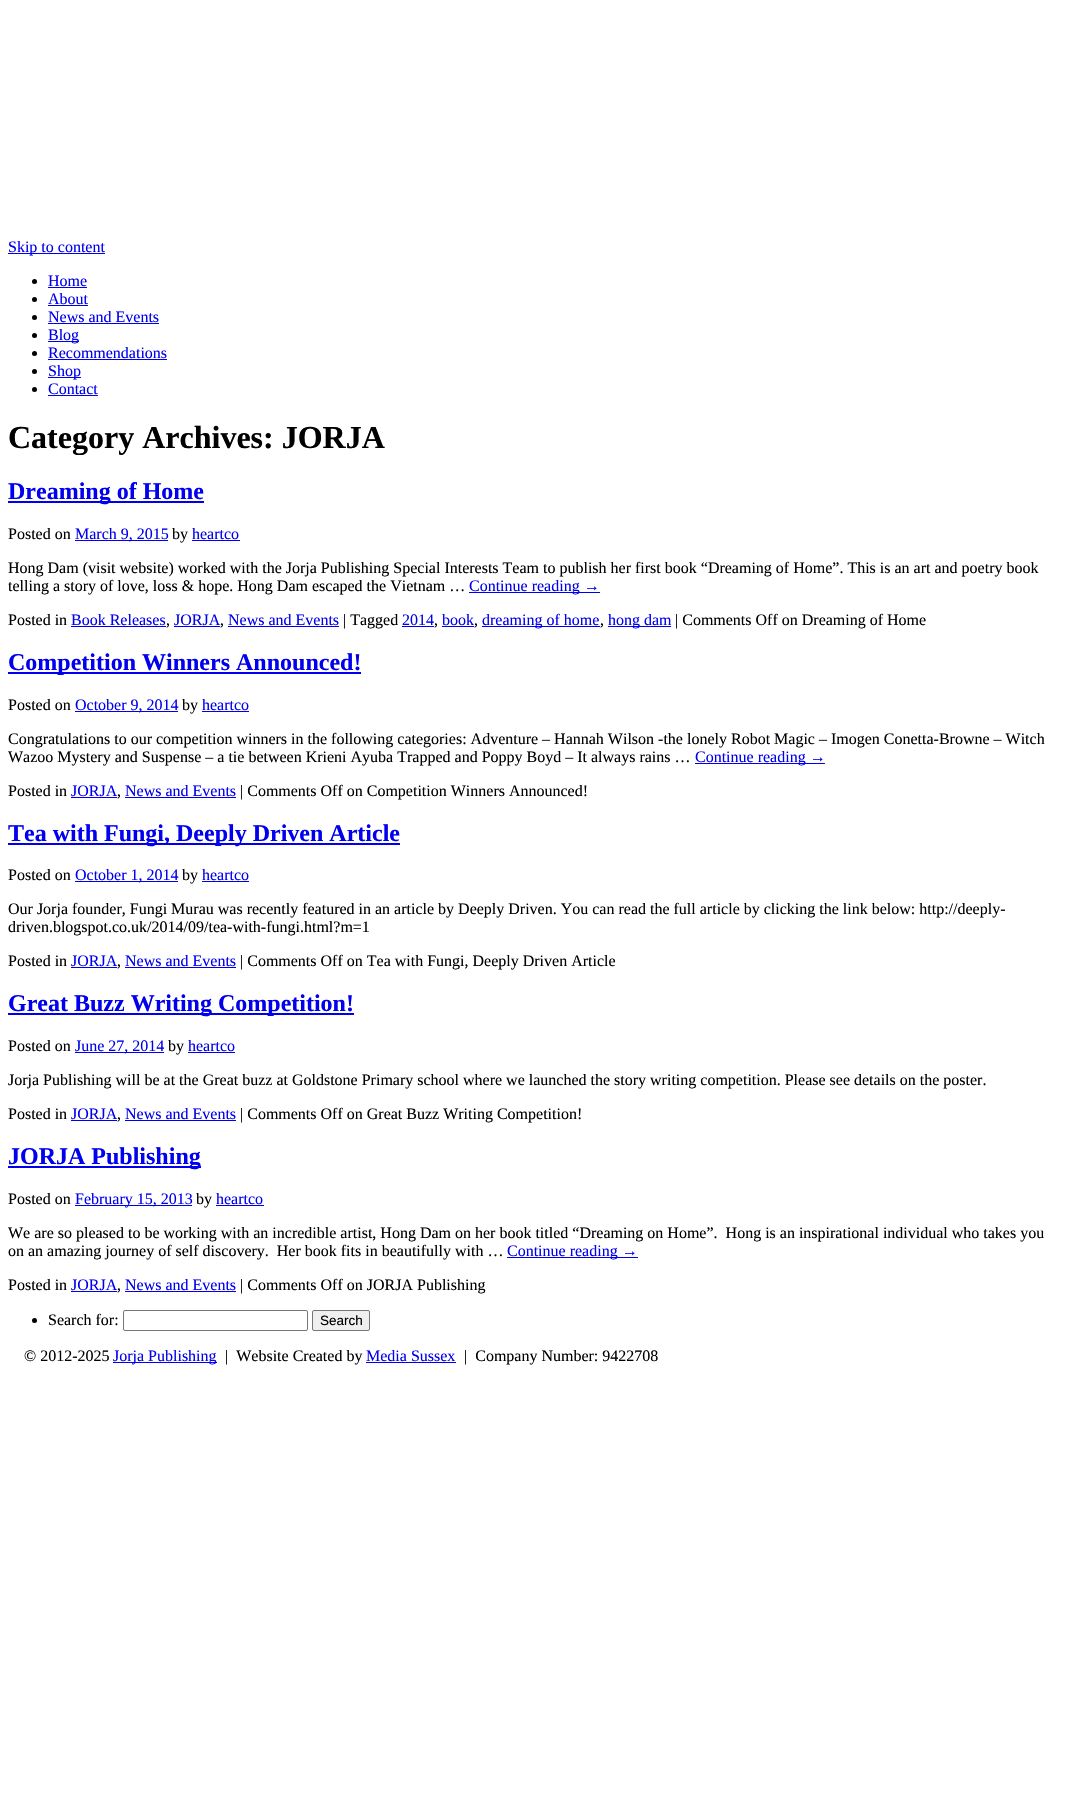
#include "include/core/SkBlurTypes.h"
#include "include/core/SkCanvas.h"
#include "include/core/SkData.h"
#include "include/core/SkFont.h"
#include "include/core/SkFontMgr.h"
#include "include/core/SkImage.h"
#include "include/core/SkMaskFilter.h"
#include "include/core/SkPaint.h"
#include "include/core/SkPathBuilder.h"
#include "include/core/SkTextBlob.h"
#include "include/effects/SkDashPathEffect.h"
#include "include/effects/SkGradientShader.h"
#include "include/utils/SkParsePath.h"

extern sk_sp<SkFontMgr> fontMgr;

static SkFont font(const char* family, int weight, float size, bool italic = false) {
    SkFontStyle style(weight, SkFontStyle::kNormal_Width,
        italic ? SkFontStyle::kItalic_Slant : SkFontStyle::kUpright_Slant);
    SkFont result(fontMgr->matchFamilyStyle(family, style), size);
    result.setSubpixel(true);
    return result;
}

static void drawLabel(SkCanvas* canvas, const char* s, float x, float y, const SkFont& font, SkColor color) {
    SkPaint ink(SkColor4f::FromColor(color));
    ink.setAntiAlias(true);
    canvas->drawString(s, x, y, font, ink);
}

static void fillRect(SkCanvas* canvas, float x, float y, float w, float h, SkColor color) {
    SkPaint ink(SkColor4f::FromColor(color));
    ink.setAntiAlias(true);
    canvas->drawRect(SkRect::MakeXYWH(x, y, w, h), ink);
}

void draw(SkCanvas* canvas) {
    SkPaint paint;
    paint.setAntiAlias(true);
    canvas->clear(0xFFFFFFFF);
    fillRect(canvas, 8, 253, 97, 1, 0xFF0000EE);
    SkFont font1 = font("Liberation Serif", 400, 16);
    drawLabel(canvas, "Skip to content", 8, 252, font1, 0xFF0000EE);
    paint.setColor(0xFF000000);
    canvas->drawCircle(34.5f, 281.5f, 2.5f, paint);
    drawLabel(canvas, "Home", 48, 286, font1, 0xFF0000EE);
    fillRect(canvas, 48, 287, 39, 1, 0xFF0000EE);
    canvas->drawCircle(34.5f, 299.5f, 2.5f, paint);
    drawLabel(canvas, "About", 48, 304, font1, 0xFF0000EE);
    fillRect(canvas, 48, 305, 40, 1, 0xFF0000EE);
    canvas->drawCircle(34.5f, 317.5f, 2.5f, paint);
    drawLabel(canvas, "News and Events", 48, 322, font1, 0xFF0000EE);
    fillRect(canvas, 48, 323, 111, 1, 0xFF0000EE);
    canvas->drawCircle(34.5f, 335.5f, 2.5f, paint);
    fillRect(canvas, 48, 341, 31, 1, 0xFF0000EE);
    drawLabel(canvas, "Blog", 48, 340, font1, 0xFF0000EE);
    canvas->drawCircle(34.5f, 353.5f, 2.5f, paint);
    drawLabel(canvas, "Recommendations", 48, 358, font1, 0xFF0000EE);
    fillRect(canvas, 48, 359, 119, 1, 0xFF0000EE);
    canvas->drawCircle(34.5f, 371.5f, 2.5f, paint);
    fillRect(canvas, 48, 377, 33, 1, 0xFF0000EE);
    drawLabel(canvas, "Shop", 48, 376, font1, 0xFF0000EE);
    canvas->drawCircle(34.5f, 389.5f, 2.5f, paint);
    drawLabel(canvas, "Contact", 48, 394, font1, 0xFF0000EE);
    fillRect(canvas, 48, 395, 50, 1, 0xFF0000EE);
    SkFont font2 = font("Liberation Serif", 700, 32);
    drawLabel(canvas, "Category Archives: JORJA", 8, 448, font2, 0xFF000000);
    fillRect(canvas, 8, 501, 196, 2, 0xFF0000EE);
    SkFont font3 = font("Liberation Serif", 700, 24);
    drawLabel(canvas, "Dreaming of Home", 8, 499, font3, 0xFF0000EE);
    drawLabel(canvas, "Posted on", 8, 539, font1, 0xFF000000);
    fillRect(canvas, 75, 540, 93, 1, 0xFF0000EE);
    drawLabel(canvas, "March 9, 2015", 75, 539, font1, 0xFF0000EE);
    drawLabel(canvas, "by", 172, 539, font1, 0xFF000000);
    drawLabel(canvas, "heartco", 192, 539, font1, 0xFF0000EE);
    fillRect(canvas, 192, 540, 48, 1, 0xFF0000EE);
    drawLabel(canvas, "Hong Dam (visit website) worked with the Jorja Publishing Special Interests Team to publish her first book “Dreaming of Home”. This is an art and poetry book", 8, 573, font1, 0xFF000000);
    drawLabel(canvas, "telling a story of love, loss & hope. Hong Dam escaped the Vietnam …", 8, 591, font1, 0xFF000000);
    fillRect(canvas, 469, 592, 131, 1, 0xFF0000EE);
    drawLabel(canvas, "Continue reading →", 469, 591, font1, 0xFF0000EE);
    drawLabel(canvas, "Posted in", 8, 625, font1, 0xFF000000);
    drawLabel(canvas, "Book Releases", 71, 625, font1, 0xFF0000EE);
    drawLabel(canvas, ",", 166, 625, font1, 0xFF000000);
    fillRect(canvas, 71, 626, 95, 1, 0xFF0000EE);
    drawLabel(canvas, "JORJA", 174, 625, font1, 0xFF0000EE);
    drawLabel(canvas, ",", 220, 625, font1, 0xFF000000);
    fillRect(canvas, 174, 626, 46, 1, 0xFF0000EE);
    fillRect(canvas, 228, 626, 111, 1, 0xFF0000EE);
    drawLabel(canvas, "News and Events", 228, 625, font1, 0xFF0000EE);
    drawLabel(canvas, "| Tagged", 343, 625, font1, 0xFF000000);
    drawLabel(canvas, "2014", 402, 625, font1, 0xFF0000EE);
    drawLabel(canvas, ",", 434, 625, font1, 0xFF000000);
    fillRect(canvas, 402, 626, 32, 1, 0xFF0000EE);
    drawLabel(canvas, "book", 442, 625, font1, 0xFF0000EE);
    drawLabel(canvas, ",", 474, 625, font1, 0xFF000000);
    fillRect(canvas, 442, 626, 32, 1, 0xFF0000EE);
    fillRect(canvas, 482, 626, 118, 1, 0xFF0000EE);
    drawLabel(canvas, "dreaming of home", 482, 625, font1, 0xFF0000EE);
    drawLabel(canvas, ",", 600, 625, font1, 0xFF000000);
    fillRect(canvas, 608, 626, 63, 1, 0xFF0000EE);
    drawLabel(canvas, "hong dam", 608, 625, font1, 0xFF0000EE);
    drawLabel(canvas, "| Comments Off on Dreaming of Home", 675, 625, font1, 0xFF000000);
    fillRect(canvas, 8, 672, 353, 2, 0xFF0000EE);
    drawLabel(canvas, "Competition Winners Announced!", 8, 670, font3, 0xFF0000EE);
    drawLabel(canvas, "Posted on", 8, 710, font1, 0xFF000000);
    fillRect(canvas, 75, 711, 103, 1, 0xFF0000EE);
    drawLabel(canvas, "October 9, 2014", 75, 710, font1, 0xFF0000EE);
    drawLabel(canvas, "by", 182, 710, font1, 0xFF000000);
    drawLabel(canvas, "heartco", 202, 710, font1, 0xFF0000EE);
    fillRect(canvas, 202, 711, 47, 1, 0xFF0000EE);
    drawLabel(canvas, "Congratulations to our competition winners in the following categories: Adventure – Hannah Wilson -the lonely Robot Magic – Imogen Conetta-Browne – Witch", 8, 744, font1, 0xFF000000);
    drawLabel(canvas, "Wazoo Mystery and Suspense – a tie between Krieni Ayuba Trapped and Poppy Boyd – It always rains …", 8, 762, font1, 0xFF000000);
    fillRect(canvas, 695, 763, 130, 1, 0xFF0000EE);
    drawLabel(canvas, "Continue reading →", 695, 762, font1, 0xFF0000EE);
    drawLabel(canvas, "Posted in", 8, 796, font1, 0xFF000000);
    drawLabel(canvas, "JORJA", 71, 796, font1, 0xFF0000EE);
    drawLabel(canvas, ",", 117, 796, font1, 0xFF000000);
    fillRect(canvas, 71, 797, 46, 1, 0xFF0000EE);
    fillRect(canvas, 125, 797, 111, 1, 0xFF0000EE);
    drawLabel(canvas, "News and Events", 125, 796, font1, 0xFF0000EE);
    drawLabel(canvas, "| Comments Off on Competition Winners Announced!", 240, 796, font1, 0xFF000000);
    fillRect(canvas, 8, 843, 392, 2, 0xFF0000EE);
    drawLabel(canvas, "Tea with Fungi, Deeply Driven Article", 8, 841, font3, 0xFF0000EE);
    drawLabel(canvas, "Posted on", 8, 880, font1, 0xFF000000);
    fillRect(canvas, 75, 881, 103, 1, 0xFF0000EE);
    drawLabel(canvas, "October 1, 2014", 75, 880, font1, 0xFF0000EE);
    drawLabel(canvas, "by", 182, 880, font1, 0xFF000000);
    drawLabel(canvas, "heartco", 202, 880, font1, 0xFF0000EE);
    fillRect(canvas, 202, 881, 47, 1, 0xFF0000EE);
    drawLabel(canvas, "Our Jorja founder, Fungi Murau was recently featured in an article by Deeply Driven. You can read the full article by clicking the link below: http://deeply-", 8, 914, font1, 0xFF000000);
    drawLabel(canvas, "driven.blogspot.co.uk/2014/09/tea-with-fungi.html?m=1", 8, 932, font1, 0xFF000000);
    drawLabel(canvas, "Posted in", 8, 966, font1, 0xFF000000);
    drawLabel(canvas, "JORJA", 71, 966, font1, 0xFF0000EE);
    drawLabel(canvas, ",", 117, 966, font1, 0xFF000000);
    fillRect(canvas, 71, 967, 46, 1, 0xFF0000EE);
    fillRect(canvas, 125, 967, 111, 1, 0xFF0000EE);
    drawLabel(canvas, "News and Events", 125, 966, font1, 0xFF0000EE);
    drawLabel(canvas, "| Comments Off on Tea with Fungi, Deeply Driven Article", 240, 966, font1, 0xFF000000);
    fillRect(canvas, 8, 1013, 346, 2, 0xFF0000EE);
    drawLabel(canvas, "Great Buzz Writing Competition!", 8, 1011, font3, 0xFF0000EE);
    drawLabel(canvas, "Posted on", 8, 1051, font1, 0xFF000000);
    fillRect(canvas, 75, 1052, 89, 1, 0xFF0000EE);
    drawLabel(canvas, "June 27, 2014", 75, 1051, font1, 0xFF0000EE);
    drawLabel(canvas, "by", 168, 1051, font1, 0xFF000000);
    drawLabel(canvas, "heartco", 188, 1051, font1, 0xFF0000EE);
    fillRect(canvas, 188, 1052, 47, 1, 0xFF0000EE);
    drawLabel(canvas, "Jorja Publishing will be at the Great buzz at Goldstone Primary school where we launched the story writing competition. Please see details on the poster.", 8, 1085, font1, 0xFF000000);
    drawLabel(canvas, "Posted in", 8, 1119, font1, 0xFF000000);
    drawLabel(canvas, "JORJA", 71, 1119, font1, 0xFF0000EE);
    drawLabel(canvas, ",", 117, 1119, font1, 0xFF000000);
    fillRect(canvas, 71, 1120, 46, 1, 0xFF0000EE);
    fillRect(canvas, 125, 1120, 111, 1, 0xFF0000EE);
    drawLabel(canvas, "News and Events", 125, 1119, font1, 0xFF0000EE);
    drawLabel(canvas, "| Comments Off on Great Buzz Writing Competition!", 240, 1119, font1, 0xFF000000);
    fillRect(canvas, 8, 1166, 193, 2, 0xFF0000EE);
    drawLabel(canvas, "JORJA Publishing", 8, 1164, font3, 0xFF0000EE);
    drawLabel(canvas, "Posted on", 8, 1204, font1, 0xFF000000);
    fillRect(canvas, 75, 1205, 117, 1, 0xFF0000EE);
    drawLabel(canvas, "February 15, 2013", 75, 1204, font1, 0xFF0000EE);
    drawLabel(canvas, "by", 196, 1204, font1, 0xFF000000);
    drawLabel(canvas, "heartco", 216, 1204, font1, 0xFF0000EE);
    fillRect(canvas, 216, 1205, 48, 1, 0xFF0000EE);
    drawLabel(canvas, "We are so pleased to be working with an incredible artist, Hong Dam on her book titled “Dreaming on Home”.  Hong is an inspirational individual who takes you", 8, 1238, font1, 0xFF000000);
    drawLabel(canvas, "on an amazing journey of self discovery.  Her book fits in beautifully with …", 8, 1256, font1, 0xFF000000);
    fillRect(canvas, 507, 1257, 131, 1, 0xFF0000EE);
    drawLabel(canvas, "Continue reading →", 507, 1256, font1, 0xFF0000EE);
    drawLabel(canvas, "Posted in", 8, 1290, font1, 0xFF000000);
    drawLabel(canvas, "JORJA", 71, 1290, font1, 0xFF0000EE);
    drawLabel(canvas, ",", 117, 1290, font1, 0xFF000000);
    fillRect(canvas, 71, 1291, 46, 1, 0xFF0000EE);
    fillRect(canvas, 125, 1291, 111, 1, 0xFF0000EE);
    drawLabel(canvas, "News and Events", 125, 1290, font1, 0xFF0000EE);
    drawLabel(canvas, "| Comments Off on JORJA Publishing", 240, 1290, font1, 0xFF000000);
    canvas->drawCircle(34.5f, 1320.5f, 2.5f, paint);
    drawLabel(canvas, "Search for:", 48, 1325, font1, 0xFF000000);
    paint.setStroke(true);
    paint.setStrokeWidth(1);
    paint.setColor(0xFF767676);
    canvas->drawRoundRect(SkRect::MakeXYWH(123.5f, 1310.5f, 184, 20), 1.5f, 1.5f, paint);
    paint.setStroke(false);
    paint.setColor(0xFFEFEFEF);
    canvas->drawRoundRect(SkRect::MakeXYWH(312.5f, 1310.5f, 57, 20), 1.5f, 1.5f, paint);
    paint.setStroke(true);
    paint.setColor(0xFF767676);
    canvas->drawRoundRect(SkRect::MakeXYWH(312.5f, 1310.5f, 57, 20), 1.5f, 1.5f, paint);
    SkFont font4 = font("Liberation Sans", 400, 13.5f);
    drawLabel(canvas, "Search", 320, 1325, font4, 0xFF000000);
    drawLabel(canvas, "© 2012-2025", 24, 1361, font1, 0xFF000000);
    fillRect(canvas, 113, 1362, 104, 1, 0xFF0000EE);
    drawLabel(canvas, "Jorja Publishing", 113, 1361, font1, 0xFF0000EE);
    drawLabel(canvas, "|  Website Created by", 225, 1361, font1, 0xFF000000);
    drawLabel(canvas, "Media Sussex", 366, 1361, font1, 0xFF0000EE);
    fillRect(canvas, 366, 1362, 90, 1, 0xFF0000EE);
    drawLabel(canvas, "|  Company Number: 9422708", 464, 1361, font1, 0xFF000000);
}
